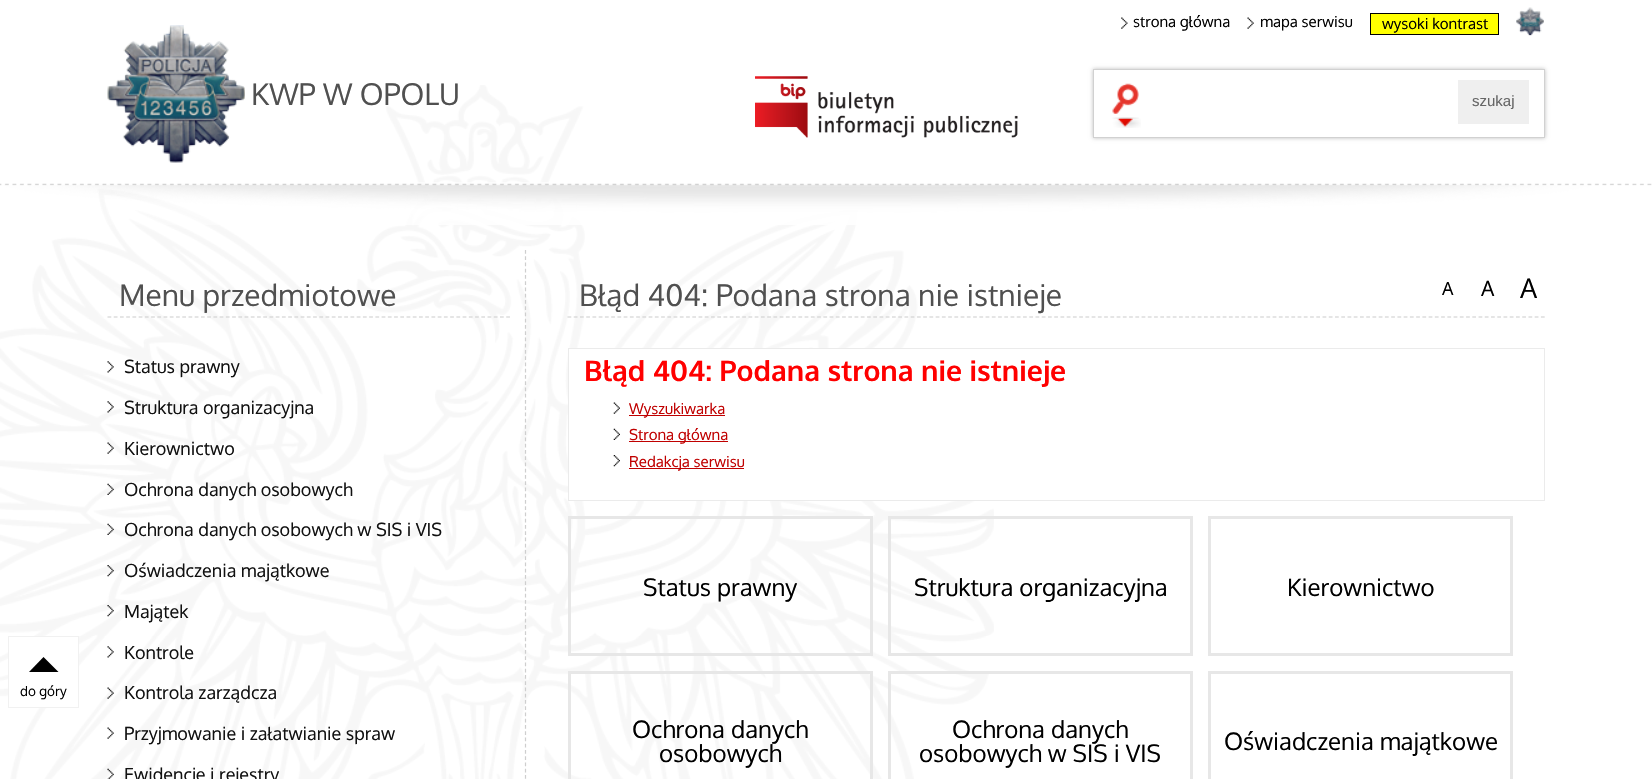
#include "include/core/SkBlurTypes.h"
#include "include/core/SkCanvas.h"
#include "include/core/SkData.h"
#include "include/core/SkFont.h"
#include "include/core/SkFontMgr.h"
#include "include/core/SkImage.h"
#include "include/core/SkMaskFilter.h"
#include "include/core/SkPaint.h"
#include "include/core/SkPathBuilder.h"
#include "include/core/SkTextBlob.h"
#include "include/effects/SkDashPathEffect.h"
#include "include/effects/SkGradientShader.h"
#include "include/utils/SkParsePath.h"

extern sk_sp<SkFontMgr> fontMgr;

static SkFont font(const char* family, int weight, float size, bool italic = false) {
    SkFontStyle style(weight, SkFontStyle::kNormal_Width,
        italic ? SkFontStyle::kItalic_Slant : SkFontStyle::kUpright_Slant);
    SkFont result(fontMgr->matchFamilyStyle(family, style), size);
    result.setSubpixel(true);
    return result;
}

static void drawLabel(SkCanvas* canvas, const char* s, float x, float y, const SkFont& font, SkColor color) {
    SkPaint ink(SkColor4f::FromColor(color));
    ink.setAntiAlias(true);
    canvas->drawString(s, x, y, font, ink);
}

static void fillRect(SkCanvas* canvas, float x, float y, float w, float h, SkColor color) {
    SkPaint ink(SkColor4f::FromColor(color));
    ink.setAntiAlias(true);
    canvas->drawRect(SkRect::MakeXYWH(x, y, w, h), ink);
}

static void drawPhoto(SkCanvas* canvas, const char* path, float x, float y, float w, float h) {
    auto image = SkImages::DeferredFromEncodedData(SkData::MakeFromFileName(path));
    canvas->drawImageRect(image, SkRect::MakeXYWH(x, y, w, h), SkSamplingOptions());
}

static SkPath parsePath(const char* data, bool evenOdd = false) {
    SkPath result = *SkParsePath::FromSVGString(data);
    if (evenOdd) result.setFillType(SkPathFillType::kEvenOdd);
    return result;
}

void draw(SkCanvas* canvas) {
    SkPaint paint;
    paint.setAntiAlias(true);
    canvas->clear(0xFFFFFFFF);
    drawPhoto(canvas, "assets/img1.png", 0, 85, 994, 694);
    paint.setColor(0xFFFFFFFF);
    canvas->drawRect(SkRect::MakeXYWH(8.5f, 636.5f, 70, 71), paint);
    paint.setStroke(true);
    paint.setStrokeWidth(1);
    paint.setColor(0xFFF1F1F1);
    canvas->drawRect(SkRect::MakeXYWH(8.5f, 636.5f, 70, 71), paint);
    paint.setStroke(false);
    paint.setColor(0xFF000000);
    canvas->drawPath(parsePath("M29 672H58.5L43.5 657Z"), paint);
    SkFont font1 = font("Oxygen", 400, 13.5f);
    drawLabel(canvas, "do góry", 20, 696, font1, 0xFF000000);
    drawPhoto(canvas, "assets/img2.png", 1121, 17, 7, 12);
    SkFont font2 = font("Oxygen", 400, 15);
    drawLabel(canvas, "strona główna", 1133, 27, font2, 0xFF000000);
    drawPhoto(canvas, "assets/img3.png", 1247, 17, 7, 12);
    drawLabel(canvas, "mapa serwisu", 1260, 27, font2, 0xFF000000);
    paint.setColor(0xFFFFFF00);
    canvas->drawRect(SkRect::MakeXYWH(1370.5f, 13.5f, 128, 21), paint);
    paint.setStroke(true);
    paint.setColor(0xFF000000);
    canvas->drawRect(SkRect::MakeXYWH(1370.5f, 13.5f, 128, 21), paint);
    drawLabel(canvas, "wysoki kontrast", 1382, 29, font2, 0xFF000000);
    drawPhoto(canvas, "assets/img4.png", 1516, 7, 28, 29);
    drawPhoto(canvas, "assets/img5.png", 107, 25, 138, 138);
    SkFont font3 = font("Oxygen", 400, 29.9f);
    drawLabel(canvas, "KWP W OPOLU", 251, 105, font3, 0xFF505050);
    drawPhoto(canvas, "assets/img6.png", 755, 76, 263, 62);
    paint.setStroke(false);
    paint.setColor(0xFFBDBDBD);
    paint.setMaskFilter(SkMaskFilter::MakeBlur(kNormal_SkBlurStyle, 2));
    canvas->drawRect(SkRect::MakeXYWH(1093, 69, 452, 69), paint);
    paint.setMaskFilter(nullptr);
    paint.setColor(0xFFFFFFFF);
    canvas->drawRect(SkRect::MakeXYWH(1093.5f, 69.5f, 451, 68), paint);
    paint.setStroke(true);
    paint.setColor(0xFFD1D1D1);
    canvas->drawRect(SkRect::MakeXYWH(1093.5f, 69.5f, 451, 68), paint);
    drawPhoto(canvas, "assets/img7.png", 1112, 83, 29, 45);
    fillRect(canvas, 1458, 80, 71, 44, 0xFFEFEFEF);
    SkFont font4 = font("Liberation Sans", 400, 15);
    drawLabel(canvas, "szukaj", 1472, 106, font4, 0xFF666666);
    drawPhoto(canvas, "assets/img8.png", 0, 182, 1652, 43);
    paint.setStrokeWidth(1.2f);
    paint.setColor(0xFFCECECE);
    paint.setPathEffect(SkDashPathEffect::Make({{3.75f, 2.5f}}, 0));
    canvas->drawPath(parsePath("M525.5 250V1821"), paint);
    paint.setPathEffect(nullptr);
    paint.setColor(0xFFCCCCCC);
    paint.setPathEffect(SkDashPathEffect::Make({{3.75f, 2.48f}}, 0));
    canvas->drawPath(parsePath("M107.5 317H510"), paint);
    paint.setPathEffect(nullptr);
    drawLabel(canvas, "Menu przedmiotowe", 119, 306, font3, 0xFF505050);
    drawPhoto(canvas, "assets/img9.png", 107, 361, 7, 12);
    SkFont font5 = font("Oxygen", 400, 18);
    drawLabel(canvas, "Status prawny", 124, 373, font5, 0xFF111111);
    drawPhoto(canvas, "assets/img10.png", 107, 401, 7, 12);
    drawLabel(canvas, "Struktura organizacyjna", 124, 414, font5, 0xFF111111);
    drawPhoto(canvas, "assets/img11.png", 107, 442, 7, 12);
    drawLabel(canvas, "Kierownictwo", 124, 455, font5, 0xFF111111);
    drawPhoto(canvas, "assets/img12.png", 107, 483, 7, 12);
    drawLabel(canvas, "Ochrona danych osobowych", 124, 496, font5, 0xFF111111);
    drawPhoto(canvas, "assets/img13.png", 107, 523, 7, 12);
    drawLabel(canvas, "Ochrona danych osobowych w SIS i VIS", 124, 536, font5, 0xFF111111);
    drawPhoto(canvas, "assets/img14.png", 107, 565, 7, 12);
    drawLabel(canvas, "Oświadczenia majątkowe", 124, 577, font5, 0xFF111111);
    drawPhoto(canvas, "assets/img15.png", 107, 605, 7, 12);
    drawLabel(canvas, "Majątek", 124, 618, font5, 0xFF111111);
    drawPhoto(canvas, "assets/img9.png", 107, 646, 7, 12);
    drawLabel(canvas, "Kontrole", 124, 659, font5, 0xFF111111);
    drawPhoto(canvas, "assets/img16.png", 107, 687, 7, 12);
    drawLabel(canvas, "Kontrola zarządcza", 124, 699, font5, 0xFF111111);
    drawPhoto(canvas, "assets/img3.png", 107, 727, 7, 12);
    drawLabel(canvas, "Przyjmowanie i załatwianie spraw", 124, 740, font5, 0xFF111111);
    drawPhoto(canvas, "assets/img17.png", 107, 768, 7, 11);
    drawLabel(canvas, "Ewidencje i rejestry", 124, 781, font5, 0xFF111111);
    paint.setPathEffect(SkDashPathEffect::Make({{3.75f, 2.49f}}, 0));
    canvas->drawPath(parsePath("M567.5 317H1545"), paint);
    paint.setPathEffect(nullptr);
    drawLabel(canvas, "Błąd 404: Podana strona nie istnieje", 579, 306, font3, 0xFF505050);
    drawLabel(canvas, "A", 1442, 295, font5, 0xFF000000);
    SkFont font6 = font("Oxygen", 400, 21);
    drawLabel(canvas, "A", 1481, 296, font6, 0xFF000000);
    SkFont font7 = font("Oxygen", 400, 27);
    drawLabel(canvas, "A", 1520, 298, font7, 0xFF000000);
    fillRect(canvas, 569, 349, 425, 151, 0xFFFFFFFF);
    paint.setStrokeWidth(1);
    paint.setColor(0xFFEBEBEB);
    canvas->drawRect(SkRect::MakeXYWH(568.5f, 348.5f, 976, 152), paint);
    SkFont font8 = font("Oxygen", 700, 28.4f);
    drawLabel(canvas, "Błąd 404: Podana strona nie istnieje", 584, 381, font8, 0xFFFF0000);
    drawPhoto(canvas, "assets/img18.png", 613, 402, 7, 12);
    fillRect(canvas, 629, 415, 96, 1, 0xFFC00000);
    drawLabel(canvas, "Wyszukiwarka", 629, 414, font2, 0xFFC00000);
    drawPhoto(canvas, "assets/img19.png", 613, 428, 7, 12);
    fillRect(canvas, 629, 441, 99, 1, 0xFFC00000);
    drawLabel(canvas, "Strona główna", 629, 440, font2, 0xFFC00000);
    drawPhoto(canvas, "assets/img20.png", 613, 455, 7, 12);
    fillRect(canvas, 629, 468, 115, 1, 0xFFC00000);
    drawLabel(canvas, "Redakcja serwisu", 629, 467, font2, 0xFFC00000);
    paint.setStrokeWidth(3);
    paint.setColor(0xFFE7E7E7);
    canvas->drawRect(SkRect::MakeXYWH(569.5f, 517.5f, 302, 137), paint);
    SkFont font9 = font("Oxygen", 400, 24);
    drawLabel(canvas, "Status prawny", 643, 596, font9, 0xFF000000);
    canvas->drawRect(SkRect::MakeXYWH(889.5f, 517.5f, 302, 137), paint);
    drawLabel(canvas, "Struktura organizacyjna", 914, 596, font9, 0xFF000000);
    canvas->drawRect(SkRect::MakeXYWH(1209.5f, 517.5f, 302, 137), paint);
    drawLabel(canvas, "Kierownictwo", 1287, 596, font9, 0xFF000000);
    canvas->drawRect(SkRect::MakeXYWH(569.5f, 672.5f, 302, 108), paint);
    drawLabel(canvas, "Ochrona danych", 632, 738, font9, 0xFF000000);
    drawLabel(canvas, "osobowych", 659, 762, font9, 0xFF000000);
    canvas->drawRect(SkRect::MakeXYWH(889.5f, 672.5f, 302, 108), paint);
    drawLabel(canvas, "Ochrona danych", 952, 738, font9, 0xFF000000);
    drawLabel(canvas, "osobowych w SIS i VIS", 919, 762, font9, 0xFF000000);
    canvas->drawRect(SkRect::MakeXYWH(1209.5f, 672.5f, 302, 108), paint);
    drawLabel(canvas, "Oświadczenia majątkowe", 1224, 750, font9, 0xFF000000);
}
